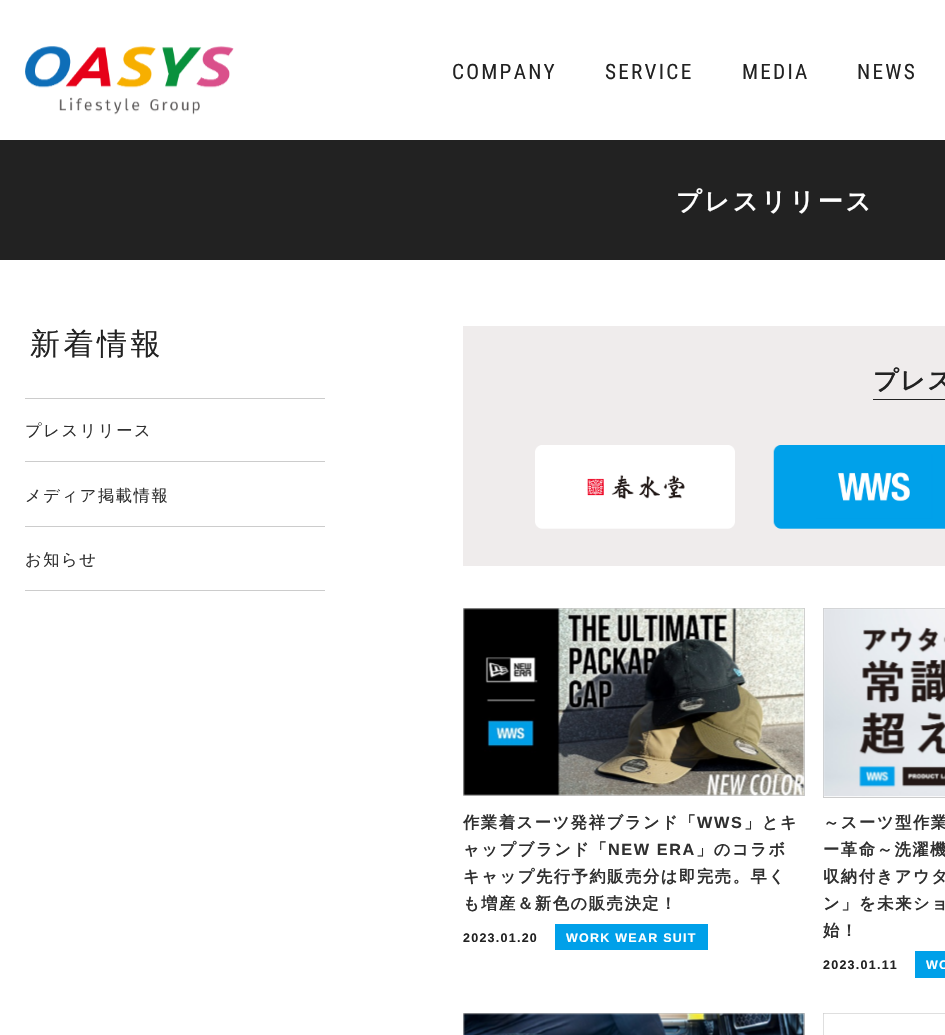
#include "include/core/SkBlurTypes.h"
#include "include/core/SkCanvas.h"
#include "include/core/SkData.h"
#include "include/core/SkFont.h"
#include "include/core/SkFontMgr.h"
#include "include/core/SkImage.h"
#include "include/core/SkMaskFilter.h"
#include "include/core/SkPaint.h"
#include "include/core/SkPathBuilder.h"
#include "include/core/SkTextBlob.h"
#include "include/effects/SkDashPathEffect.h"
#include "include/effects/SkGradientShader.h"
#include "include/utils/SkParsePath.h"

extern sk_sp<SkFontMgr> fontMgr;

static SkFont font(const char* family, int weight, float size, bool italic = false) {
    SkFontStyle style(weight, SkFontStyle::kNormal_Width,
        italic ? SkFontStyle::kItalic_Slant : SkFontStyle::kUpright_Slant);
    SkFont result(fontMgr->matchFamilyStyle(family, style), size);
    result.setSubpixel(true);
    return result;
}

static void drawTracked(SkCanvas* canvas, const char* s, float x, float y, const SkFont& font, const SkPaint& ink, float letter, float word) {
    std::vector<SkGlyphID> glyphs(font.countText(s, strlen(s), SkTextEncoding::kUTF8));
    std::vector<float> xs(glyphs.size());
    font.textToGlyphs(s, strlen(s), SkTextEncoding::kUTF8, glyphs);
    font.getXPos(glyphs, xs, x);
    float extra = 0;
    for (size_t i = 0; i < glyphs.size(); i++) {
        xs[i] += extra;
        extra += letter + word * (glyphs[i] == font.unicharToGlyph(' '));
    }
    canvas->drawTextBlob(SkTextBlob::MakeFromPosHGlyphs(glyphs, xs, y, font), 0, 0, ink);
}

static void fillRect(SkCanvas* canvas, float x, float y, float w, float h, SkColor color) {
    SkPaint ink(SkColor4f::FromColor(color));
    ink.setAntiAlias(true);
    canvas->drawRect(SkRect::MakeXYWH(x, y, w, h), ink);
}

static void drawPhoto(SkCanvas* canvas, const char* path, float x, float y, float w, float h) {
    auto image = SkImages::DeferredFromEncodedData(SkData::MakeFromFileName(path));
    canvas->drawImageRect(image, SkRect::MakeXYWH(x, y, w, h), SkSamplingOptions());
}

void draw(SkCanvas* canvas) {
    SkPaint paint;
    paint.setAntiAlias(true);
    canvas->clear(0xFFFFFFFF);
    drawPhoto(canvas, "assets/img1.png", 25, 46, 209, 69);
    SkFont font1 = font("Roboto Condensed", 400, 21.25f);
    paint.setColor(0xFF222222);
    drawTracked(canvas, "COMPANY", 452, 79, font1, paint, 2.25f, 0);
    drawTracked(canvas, "SERVICE", 605, 79, font1, paint, 2.25f, 0);
    drawTracked(canvas, "MEDIA", 742, 79, font1, paint, 2.25f, 0);
    drawTracked(canvas, "NEWS", 857, 79, font1, paint, 2.25f, 0);
    fillRect(canvas, 0, 140, 945, 120, 0xFF222222);
    SkFont font2 = font("WenQuanYi Zen Hei", 700, 25);
    paint.setColor(0xFFFFFFFF);
    drawTracked(canvas, "プレスリリース", 676, 210, font2, paint, 2.75f, 0);
    SkFont font3 = font("WenQuanYi Zen Hei", 500, 30);
    paint.setColor(0xFF222222);
    drawTracked(canvas, "新着情報", 30, 354, font3, paint, 3.5f, 0);
    fillRect(canvas, 25, 398, 300, 1, 0xFFCCCCCC);
    fillRect(canvas, 25, 461, 300, 1, 0xFFCCCCCC);
    SkFont font4 = font("WenQuanYi Zen Hei", 500, 16.25f);
    paint.setColor(0xFF303030);
    drawTracked(canvas, "プレスリリース", 25, 436, font4, paint, 1.6f, 0);
    fillRect(canvas, 25, 526, 300, 1, 0xFFCCCCCC);
    drawTracked(canvas, "メディア掲載情報", 25, 501, font4, paint, 1.6f, 0);
    fillRect(canvas, 25, 590, 300, 1, 0xFFCCCCCC);
    drawTracked(canvas, "お知らせ", 25, 565, font4, paint, 1.6f, 0);
    fillRect(canvas, 463, 326, 482, 240, 0xFFEFECEC);
    paint.setColor(0xFF222222);
    drawTracked(canvas, "プレス", 873, 389, font2, paint, 1.5f, 0);
    fillRect(canvas, 873, 399, 72, 1, 0xFF222222);
    drawPhoto(canvas, "assets/img2.png", 535, 445, 200, 84);
    drawPhoto(canvas, "assets/img3.png", 773, 445, 172, 84);
    paint.setStroke(true);
    paint.setStrokeWidth(1);
    paint.setColor(0xFFCCCCCC);
    canvas->drawRect(SkRect::MakeXYWH(463.5f, 608.5f, 341, 187), paint);
    drawPhoto(canvas, "assets/img4.png", 463, 608, 342, 188);
    SkFont font5 = font("WenQuanYi Zen Hei", 700, 16.25f);
    paint.setStroke(false);
    paint.setColor(0xFF303030);
    drawTracked(canvas, "作業着スーツ発祥ブランド「", 463, 828, font5, paint, 1.6f, 0);
    SkFont font6 = font("Liberation Sans", 700, 16.25f);
    drawTracked(canvas, "WWS", 697, 828, font6, paint, 1.6f, 0);
    drawTracked(canvas, "」とキ", 744, 828, font5, paint, 1.6f, 0);
    drawTracked(canvas, "ャップブランド「", 463, 855, font5, paint, 1.6f, 0);
    drawTracked(canvas, "NEW ERA", 608, 855, font6, paint, 1.6f, 0);
    drawTracked(canvas, "」のコラボ", 696, 855, font5, paint, 1.6f, 0);
    drawTracked(canvas, "キャップ先行予約販売分は即完売。早く", 463, 882, font5, paint, 1.6f, 0);
    drawTracked(canvas, "も増産＆新色の販売決定！", 463, 909, font5, paint, 1.6f, 0);
    SkFont font7 = font("Liberation Sans", 700, 12.5f);
    paint.setColor(0xFF222222);
    drawTracked(canvas, "2023.01.20", 463, 942, font7, paint, 1.25f, 0);
    fillRect(canvas, 555, 924, 153, 26, 0xFF00A0E9);
    paint.setColor(0xFFFFFFFF);
    drawTracked(canvas, "WORK WEAR SUIT", 566, 942, font7, paint, 1.25f, 0);
    paint.setStroke(true);
    paint.setColor(0xFFCCCCCC);
    canvas->drawRect(SkRect::MakeXYWH(823.5f, 608.5f, 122, 189), paint);
    drawPhoto(canvas, "assets/img5.png", 823, 608, 122, 189);
    paint.setStroke(false);
    paint.setColor(0xFF303030);
    drawTracked(canvas, "～スーツ型作業", 823, 828, font5, paint, 1.6f, 0);
    drawTracked(canvas, "ー革命～洗濯機", 823, 855, font5, paint, 1.6f, 0);
    drawTracked(canvas, "収納付きアウタ", 823, 882, font5, paint, 1.6f, 0);
    drawTracked(canvas, "ン」を未来ショ", 823, 909, font5, paint, 1.6f, 0);
    drawTracked(canvas, "始！", 823, 936, font5, paint, 1.6f, 0);
    paint.setColor(0xFF222222);
    drawTracked(canvas, "2023.01.11", 823, 969, font7, paint, 1.25f, 0);
    fillRect(canvas, 915, 951, 30, 27, 0xFF00A0E9);
    paint.setColor(0xFFFFFFFF);
    drawTracked(canvas, "WO", 926, 969, font7, paint, 1.25f, 0);
    paint.setStroke(true);
    paint.setColor(0xFFCCCCCC);
    canvas->drawRect(SkRect::MakeXYWH(463.5f, 1013.5f, 341, 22), paint);
    drawPhoto(canvas, "assets/img6.png", 463, 1013, 342, 22);
    canvas->drawRect(SkRect::MakeXYWH(823.5f, 1013.5f, 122, 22), paint);
    drawPhoto(canvas, "assets/img7.png", 823, 1013, 122, 22);
}
